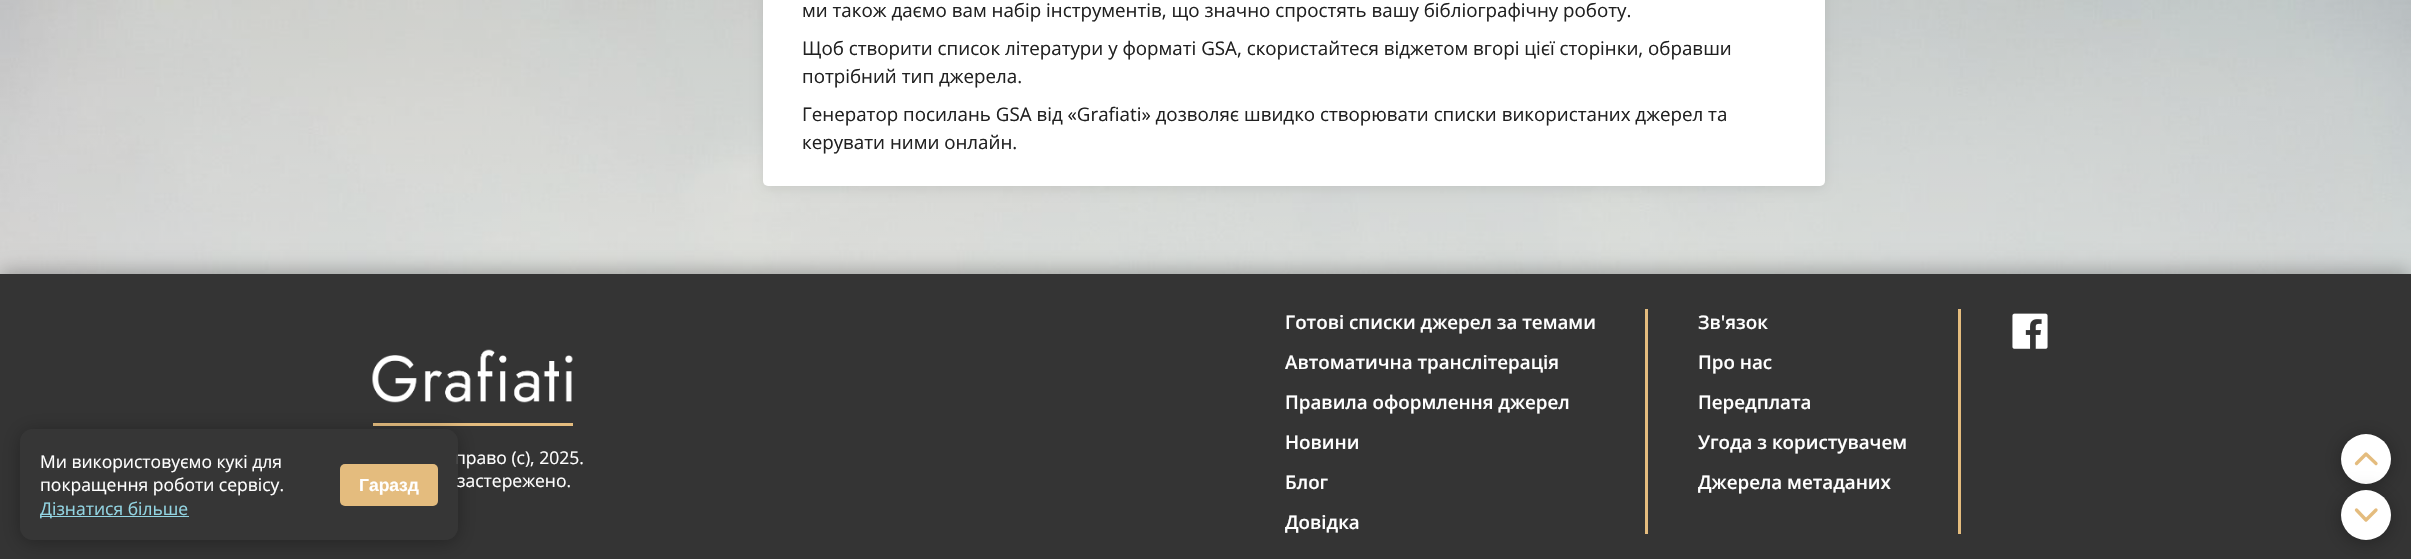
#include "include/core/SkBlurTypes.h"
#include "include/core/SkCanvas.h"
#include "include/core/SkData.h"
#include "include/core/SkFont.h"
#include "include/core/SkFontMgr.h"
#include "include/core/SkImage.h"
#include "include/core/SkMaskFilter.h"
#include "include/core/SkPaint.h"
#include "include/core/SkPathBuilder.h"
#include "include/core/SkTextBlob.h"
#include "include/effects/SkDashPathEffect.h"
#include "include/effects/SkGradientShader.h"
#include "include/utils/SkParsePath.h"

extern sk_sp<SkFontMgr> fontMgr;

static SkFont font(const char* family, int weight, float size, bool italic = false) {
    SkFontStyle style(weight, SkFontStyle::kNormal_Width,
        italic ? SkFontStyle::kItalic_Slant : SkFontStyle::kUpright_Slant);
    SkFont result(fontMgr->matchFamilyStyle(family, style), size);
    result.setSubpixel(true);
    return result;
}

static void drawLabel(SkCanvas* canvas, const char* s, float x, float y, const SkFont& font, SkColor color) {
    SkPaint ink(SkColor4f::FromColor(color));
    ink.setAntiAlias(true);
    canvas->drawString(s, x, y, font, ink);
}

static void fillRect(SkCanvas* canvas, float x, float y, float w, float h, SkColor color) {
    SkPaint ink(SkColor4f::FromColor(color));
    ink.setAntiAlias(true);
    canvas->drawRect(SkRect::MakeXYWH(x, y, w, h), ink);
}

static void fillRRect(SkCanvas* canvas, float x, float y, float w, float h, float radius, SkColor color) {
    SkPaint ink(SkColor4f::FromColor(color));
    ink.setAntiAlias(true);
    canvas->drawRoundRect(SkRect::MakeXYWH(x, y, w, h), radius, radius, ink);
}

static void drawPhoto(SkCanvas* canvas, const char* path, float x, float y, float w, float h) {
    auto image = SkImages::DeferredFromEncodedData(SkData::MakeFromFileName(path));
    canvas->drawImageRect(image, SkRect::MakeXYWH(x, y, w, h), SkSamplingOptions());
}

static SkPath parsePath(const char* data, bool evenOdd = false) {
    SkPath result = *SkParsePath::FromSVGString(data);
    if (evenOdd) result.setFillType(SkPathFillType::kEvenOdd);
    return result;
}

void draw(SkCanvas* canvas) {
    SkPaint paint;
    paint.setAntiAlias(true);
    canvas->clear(0xFFFFFFFF);
    drawPhoto(canvas, "assets/img1.png", 0, 0, 2411, 274);
    paint.setColor(0x14000000);
    paint.setMaskFilter(SkMaskFilter::MakeBlur(kNormal_SkBlurStyle, 6));
    canvas->drawRoundRect(SkRect::MakeXYWH(763, -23, 1062, 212), 5, 5, paint);
    paint.setMaskFilter(nullptr);
    fillRRect(canvas, 763, -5, 1062, 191, 5, 0xFFFFFFFF);
    SkFont font1 = font("Open Sans", 400, 18.75f);
    drawLabel(canvas, "ми також даємо вам набір інструментів, що значно спростять вашу бібліографічну роботу.", 802, 17, font1, 0xFF212121);
    drawLabel(canvas, "Щоб створити список літератури у форматі GSA, скористайтеся віджетом вгорі цієї сторінки, обравши", 802, 55, font1, 0xFF212121);
    drawLabel(canvas, "потрібний тип джерела.", 802, 83, font1, 0xFF212121);
    drawLabel(canvas, "Генератор посилань GSA від «Grafiati» дозволяє швидко створювати списки використаних джерел та", 802, 121, font1, 0xFF212121);
    drawLabel(canvas, "керувати ними онлайн.", 802, 149, font1, 0xFF212121);
    paint.setColor(0x4A000000);
    paint.setMaskFilter(SkMaskFilter::MakeBlur(kNormal_SkBlurStyle, 9.5f));
    canvas->drawRect(SkRect::MakeXYWH(0, 271, 2411, 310), paint);
    paint.setMaskFilter(nullptr);
    fillRect(canvas, 0, 274, 2411, 285, 0xFF343434);
    fillRect(canvas, 373, 423, 200, 3, 0xFFE4BC7E);
    drawPhoto(canvas, "assets/img2.png", 372, 349, 201, 54);
    canvas->save();
    canvas->clipPath(parsePath("M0 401H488V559H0ZM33 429H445C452 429 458 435 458 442V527C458 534 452 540 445 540H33C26 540 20 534 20 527V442C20 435 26 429 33 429Z", true), true);
    paint.setMaskFilter(SkMaskFilter::MakeBlur(kNormal_SkBlurStyle, 9.5f));
    canvas->drawRoundRect(SkRect::MakeXYWH(20, 431, 438, 112), 13, 13, paint);
    paint.setMaskFilter(nullptr);
    canvas->restore();
    SkFont font2 = font("Open Sans", 400, 17.5f);
    drawLabel(canvas, "право (с), 2025.", 455, 464, font2, 0xFFFFFFFF);
    fillRRect(canvas, 20, 429, 438, 111, 13, 0xE6353535);
    drawLabel(canvas, "Ми використовуємо кукі для", 40, 468, font2, 0xFFFFFFFF);
    drawLabel(canvas, "покращення роботи сервісу.", 40, 491, font2, 0xFFFFFFFF);
    fillRect(canvas, 40, 516, 149, 1, 0xFF93D5E3);
    drawLabel(canvas, "Дізнатися більше", 40, 515, font2, 0xFF93D5E3);
    fillRRect(canvas, 340, 464, 98, 42, 5, 0xFFE4BC7E);
    SkFont font3 = font("Liberation Sans", 700, 17.5f);
    drawLabel(canvas, "Гаразд", 359, 491, font3, 0xFFFFFFFF);
    paint.setMaskFilter(SkMaskFilter::MakeBlur(kNormal_SkBlurStyle, 9.5f));
    canvas->drawRoundRect(SkRect::MakeXYWH(2341, 436, 50, 50), 25, 25, paint);
    paint.setMaskFilter(nullptr);
    paint.setColor(0xFFFFFFFF);
    canvas->drawCircle(2366, 459, 25, paint);
    paint.setColor(0x4A000000);
    paint.setMaskFilter(SkMaskFilter::MakeBlur(kNormal_SkBlurStyle, 9.5f));
    canvas->drawRoundRect(SkRect::MakeXYWH(2341, 493, 50, 50), 25, 25, paint);
    paint.setMaskFilter(nullptr);
    paint.setStroke(true);
    paint.setStrokeWidth(3.3f);
    paint.setStrokeCap(SkPaint::kRound_Cap);
    paint.setStrokeJoin(SkPaint::kRound_Join);
    paint.setColor(0xFFE4BC7E);
    canvas->drawPath(parsePath("M2356.5 463.5L2366 454L2376 463.5"), paint);
    paint.setStroke(false);
    paint.setColor(0xFFFFFFFF);
    canvas->drawCircle(2366, 515, 25, paint);
    paint.setStroke(true);
    paint.setColor(0xFFE4BC7E);
    canvas->drawPath(parsePath("M2356.5 510L2366 520L2376 510"), paint);
    drawLabel(canvas, "застережено.", 457, 487, font2, 0xFFFFFFFF);
    fillRect(canvas, 1645, 309, 3, 225, 0xFFE4BC7E);
    SkFont font4 = font("Open Sans", 600, 18.75f);
    drawLabel(canvas, "Готові списки джерел за темами", 1285, 329, font4, 0xFFFFFFFF);
    drawLabel(canvas, "Автоматична транслітерація", 1285, 369, font4, 0xFFFFFFFF);
    drawLabel(canvas, "Правила оформлення джерел", 1285, 409, font4, 0xFFFFFFFF);
    drawLabel(canvas, "Новини", 1285, 449, font4, 0xFFFFFFFF);
    drawLabel(canvas, "Блог", 1285, 489, font4, 0xFFFFFFFF);
    drawLabel(canvas, "Довідка", 1285, 529, font4, 0xFFFFFFFF);
    fillRect(canvas, 1958, 309, 3, 225, 0xFFE4BC7E);
    drawLabel(canvas, "Зв'язок", 1698, 329, font4, 0xFFFFFFFF);
    drawLabel(canvas, "Про нас", 1698, 369, font4, 0xFFFFFFFF);
    drawLabel(canvas, "Передплата", 1698, 409, font4, 0xFFFFFFFF);
    drawLabel(canvas, "Угода з користувачем", 1698, 449, font4, 0xFFFFFFFF);
    drawLabel(canvas, "Джерела метаданих", 1698, 489, font4, 0xFFFFFFFF);
    drawPhoto(canvas, "assets/img3.png", 2012, 313, 36, 36);
}
